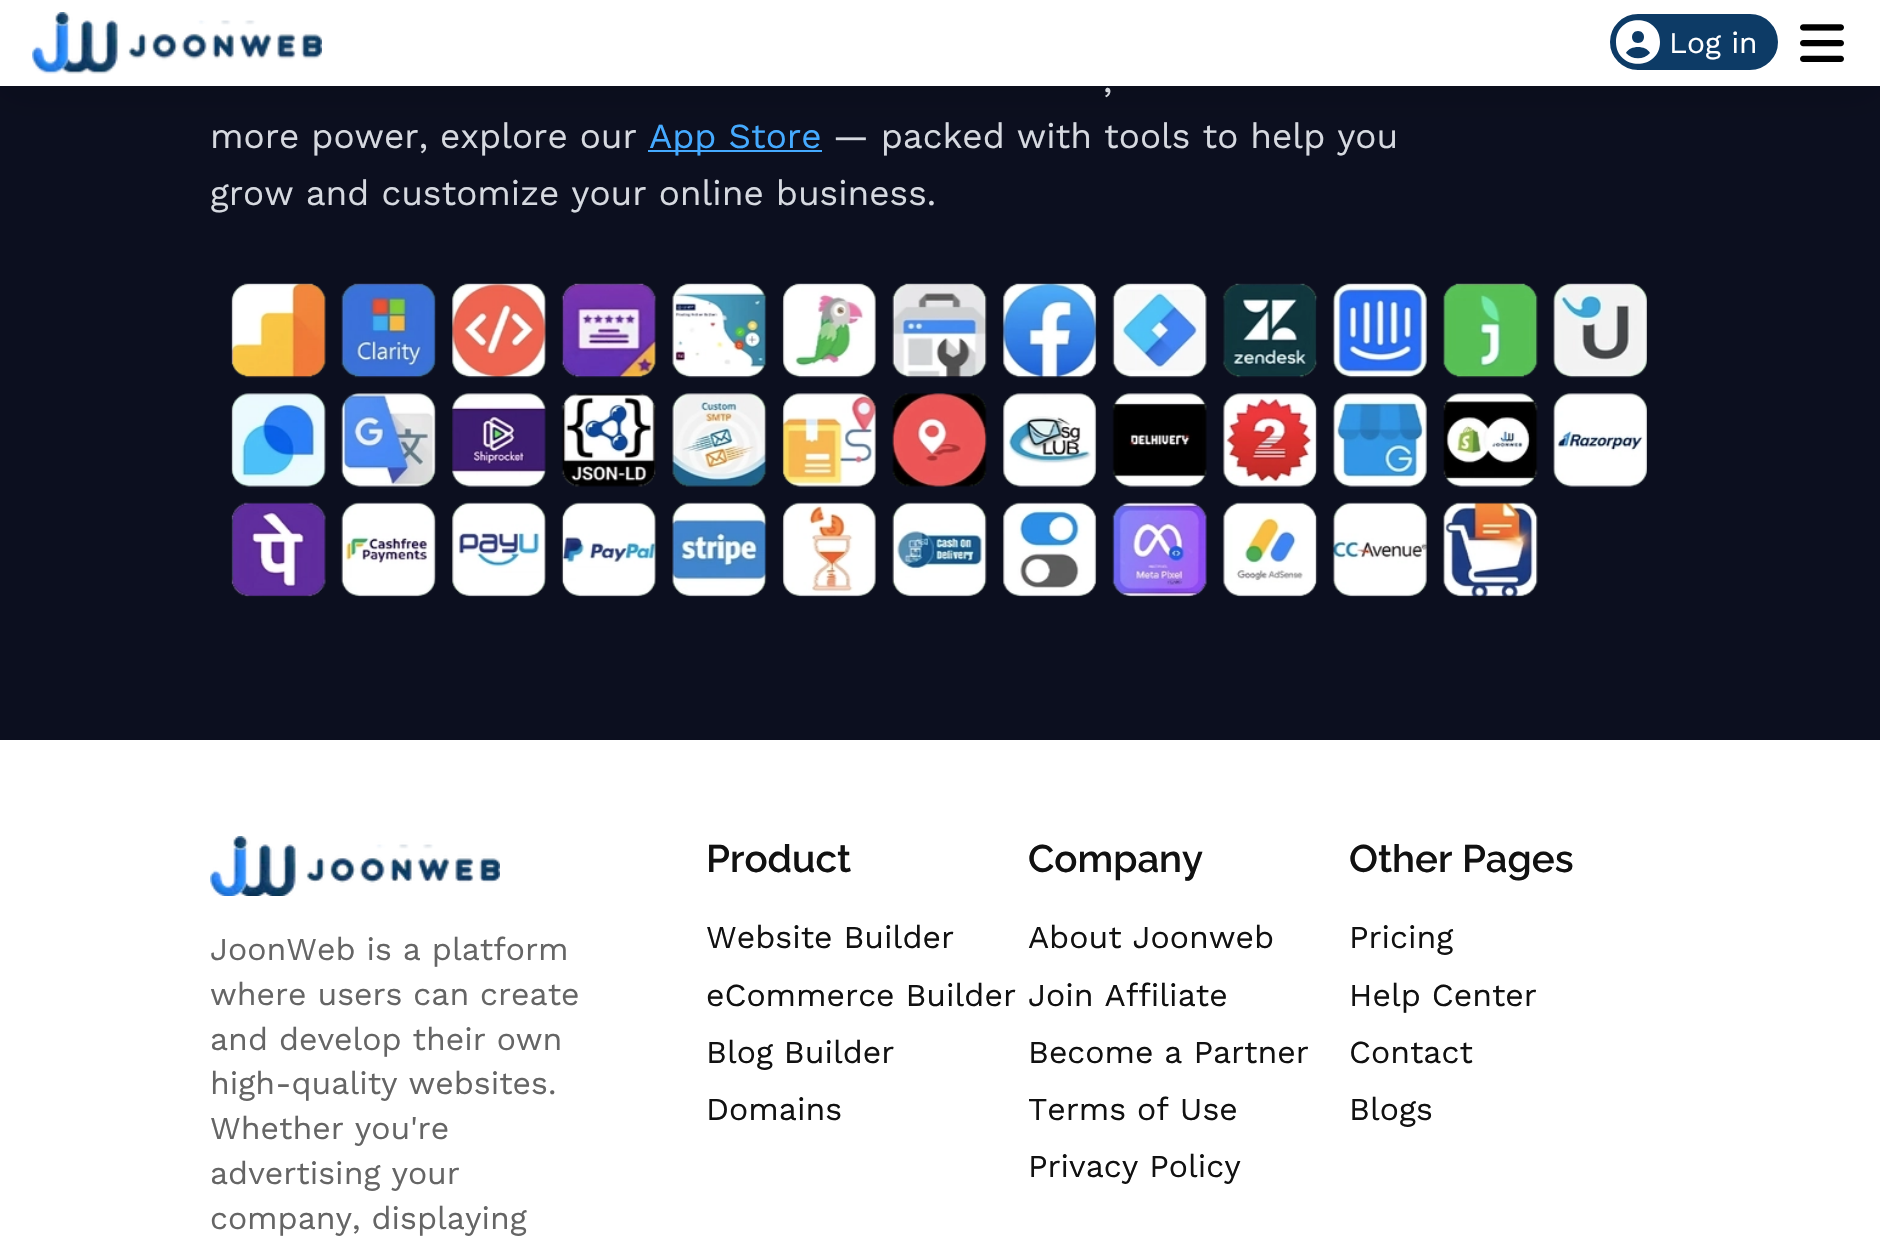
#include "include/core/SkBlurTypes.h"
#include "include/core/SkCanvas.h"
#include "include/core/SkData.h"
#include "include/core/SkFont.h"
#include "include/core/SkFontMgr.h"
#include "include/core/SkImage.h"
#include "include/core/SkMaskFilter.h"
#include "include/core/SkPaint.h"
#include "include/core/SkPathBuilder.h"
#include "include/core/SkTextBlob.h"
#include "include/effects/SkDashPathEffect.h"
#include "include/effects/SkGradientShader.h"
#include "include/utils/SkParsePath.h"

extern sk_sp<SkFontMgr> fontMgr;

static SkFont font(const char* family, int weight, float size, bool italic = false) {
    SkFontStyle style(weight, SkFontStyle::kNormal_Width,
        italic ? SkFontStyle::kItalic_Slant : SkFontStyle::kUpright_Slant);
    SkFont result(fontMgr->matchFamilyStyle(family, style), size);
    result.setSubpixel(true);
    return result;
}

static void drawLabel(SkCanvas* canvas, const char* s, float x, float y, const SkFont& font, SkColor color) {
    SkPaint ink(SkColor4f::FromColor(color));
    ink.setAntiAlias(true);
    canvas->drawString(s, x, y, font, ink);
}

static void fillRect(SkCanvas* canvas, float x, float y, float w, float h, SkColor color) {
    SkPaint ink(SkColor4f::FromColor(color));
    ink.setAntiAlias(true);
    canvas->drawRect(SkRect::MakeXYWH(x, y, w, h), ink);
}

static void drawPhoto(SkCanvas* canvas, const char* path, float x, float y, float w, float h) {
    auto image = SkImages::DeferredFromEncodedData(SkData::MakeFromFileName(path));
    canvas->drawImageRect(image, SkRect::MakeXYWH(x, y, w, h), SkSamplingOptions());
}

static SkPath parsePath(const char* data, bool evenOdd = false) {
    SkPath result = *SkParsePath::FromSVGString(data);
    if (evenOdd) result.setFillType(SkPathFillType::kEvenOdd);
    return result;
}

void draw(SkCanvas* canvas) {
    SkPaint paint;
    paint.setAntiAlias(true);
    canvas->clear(0xFFFFFFFF);
    fillRect(canvas, 0, 86, 1880, 654, 0xFF0C0F1F);
    fillRect(canvas, 648, 150, 174, 2, 0xFF45AAFF);
    paint.setColor(0x26000000);
    paint.setMaskFilter(SkMaskFilter::MakeBlur(kNormal_SkBlurStyle, 21));
    canvas->drawRect(SkRect::MakeXYWH(0, 6, 1880, 86), paint);
    paint.setMaskFilter(nullptr);
    fillRect(canvas, 0, 0, 1880, 86, 0xFFFFFFFF);
    drawPhoto(canvas, "assets/img1.png", 32, 12, 290, 62);
    paint.setColor(0xFF0D3B66);
    canvas->drawRoundRect(SkRect::MakeXYWH(1609, 13, 170, 58), 29, 29, paint);
    paint.setStroke(true);
    paint.setStrokeWidth(2);
    paint.setColor(0xFFFFFFFF);
    canvas->drawRoundRect(SkRect::MakeXYWH(1609, 13, 170, 58), 29, 29, paint);
    paint.setStroke(false);
    canvas->drawPath(parsePath("M1650 53C1646 45 1630 45 1626 53C1632 60 1644 60 1650 53ZM1616 42C1616 13 1660 13 1660 42C1660 71 1616 71 1616 42ZM1638 43C1646 43 1646 31 1638 31C1630 31 1630 43 1638 43Z"), paint);
    SkFont font1 = font("Work Sans", 400, 30);
    drawLabel(canvas, "Log in", 1669, 53, font1, 0xFFFFFFFF);
    drawPhoto(canvas, "assets/img2.png", 1800, 24, 44, 38);
    SkFont font2 = font("Work Sans", 400, 35.2f);
    drawLabel(canvas, ",", 1103, 92, font2, 0xFFD6D9E0);
    drawLabel(canvas, "more power, explore our", 210, 148, font2, 0xFFD6D9E0);
    drawLabel(canvas, "App Store", 649, 148, font2, 0xFF45AAFF);
    drawLabel(canvas, "— packed with tools to help you", 833, 148, font2, 0xFFD6D9E0);
    drawLabel(canvas, "grow and customize your online business.", 210, 205, font2, 0xFFD6D9E0);
    drawPhoto(canvas, "assets/img3.png", 231, 283, 1416, 314);
    drawPhoto(canvas, "assets/img4.png", 210, 836, 290, 60);
    SkFont font3 = font("Work Sans", 400, 32);
    drawLabel(canvas, "JoonWeb is a platform", 210, 960, font3, 0xFF656565);
    drawLabel(canvas, "where users can create", 210, 1005, font3, 0xFF656565);
    drawLabel(canvas, "and develop their own", 210, 1050, font3, 0xFF656565);
    drawLabel(canvas, "high-quality websites.", 210, 1094, font3, 0xFF656565);
    drawLabel(canvas, "Whether you're", 210, 1139, font3, 0xFF656565);
    drawLabel(canvas, "advertising your", 210, 1184, font3, 0xFF656565);
    drawLabel(canvas, "company, displaying", 210, 1229, font3, 0xFF656565);
    SkFont font4 = font("Raleway", 600, 38.5f);
    drawLabel(canvas, "Product", 706, 872, font4, 0xFF111111);
    drawLabel(canvas, "Website Builder", 706, 948, font3, 0xFF111111);
    drawLabel(canvas, "eCommerce Builder", 706, 1006, font3, 0xFF111111);
    drawLabel(canvas, "Blog Builder", 706, 1063, font3, 0xFF111111);
    drawLabel(canvas, "Domains", 706, 1120, font3, 0xFF111111);
    drawLabel(canvas, "Company", 1028, 872, font4, 0xFF111111);
    drawLabel(canvas, "About Joonweb", 1028, 948, font3, 0xFF111111);
    drawLabel(canvas, "Join Affiliate", 1028, 1006, font3, 0xFF111111);
    drawLabel(canvas, "Become a Partner", 1028, 1063, font3, 0xFF111111);
    drawLabel(canvas, "Terms of Use", 1028, 1120, font3, 0xFF111111);
    drawLabel(canvas, "Privacy Policy", 1028, 1177, font3, 0xFF111111);
    drawLabel(canvas, "Other Pages", 1349, 872, font4, 0xFF111111);
    drawLabel(canvas, "Pricing", 1349, 948, font3, 0xFF111111);
    drawLabel(canvas, "Help Center", 1349, 1006, font3, 0xFF111111);
    drawLabel(canvas, "Contact", 1349, 1063, font3, 0xFF111111);
    drawLabel(canvas, "Blogs", 1349, 1120, font3, 0xFF111111);
}
